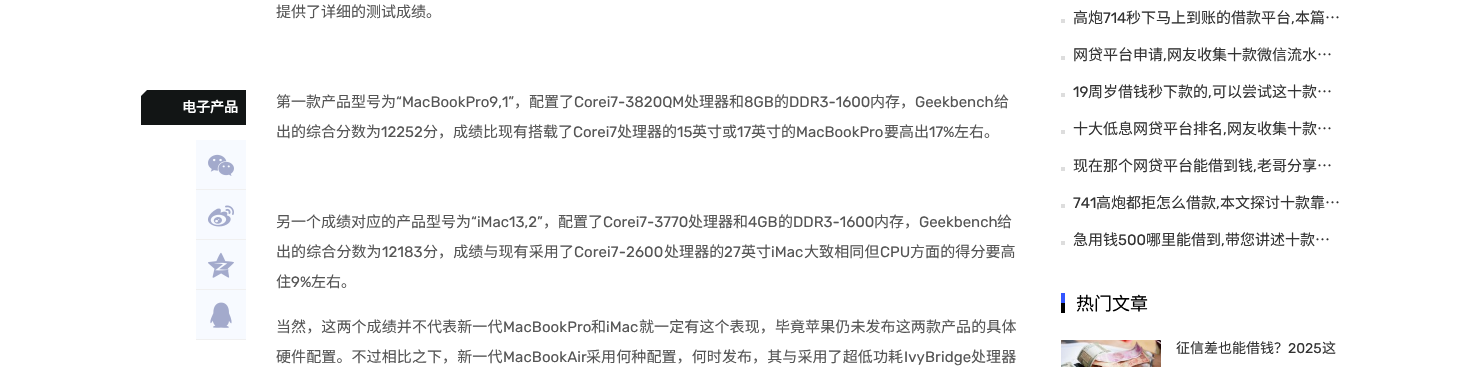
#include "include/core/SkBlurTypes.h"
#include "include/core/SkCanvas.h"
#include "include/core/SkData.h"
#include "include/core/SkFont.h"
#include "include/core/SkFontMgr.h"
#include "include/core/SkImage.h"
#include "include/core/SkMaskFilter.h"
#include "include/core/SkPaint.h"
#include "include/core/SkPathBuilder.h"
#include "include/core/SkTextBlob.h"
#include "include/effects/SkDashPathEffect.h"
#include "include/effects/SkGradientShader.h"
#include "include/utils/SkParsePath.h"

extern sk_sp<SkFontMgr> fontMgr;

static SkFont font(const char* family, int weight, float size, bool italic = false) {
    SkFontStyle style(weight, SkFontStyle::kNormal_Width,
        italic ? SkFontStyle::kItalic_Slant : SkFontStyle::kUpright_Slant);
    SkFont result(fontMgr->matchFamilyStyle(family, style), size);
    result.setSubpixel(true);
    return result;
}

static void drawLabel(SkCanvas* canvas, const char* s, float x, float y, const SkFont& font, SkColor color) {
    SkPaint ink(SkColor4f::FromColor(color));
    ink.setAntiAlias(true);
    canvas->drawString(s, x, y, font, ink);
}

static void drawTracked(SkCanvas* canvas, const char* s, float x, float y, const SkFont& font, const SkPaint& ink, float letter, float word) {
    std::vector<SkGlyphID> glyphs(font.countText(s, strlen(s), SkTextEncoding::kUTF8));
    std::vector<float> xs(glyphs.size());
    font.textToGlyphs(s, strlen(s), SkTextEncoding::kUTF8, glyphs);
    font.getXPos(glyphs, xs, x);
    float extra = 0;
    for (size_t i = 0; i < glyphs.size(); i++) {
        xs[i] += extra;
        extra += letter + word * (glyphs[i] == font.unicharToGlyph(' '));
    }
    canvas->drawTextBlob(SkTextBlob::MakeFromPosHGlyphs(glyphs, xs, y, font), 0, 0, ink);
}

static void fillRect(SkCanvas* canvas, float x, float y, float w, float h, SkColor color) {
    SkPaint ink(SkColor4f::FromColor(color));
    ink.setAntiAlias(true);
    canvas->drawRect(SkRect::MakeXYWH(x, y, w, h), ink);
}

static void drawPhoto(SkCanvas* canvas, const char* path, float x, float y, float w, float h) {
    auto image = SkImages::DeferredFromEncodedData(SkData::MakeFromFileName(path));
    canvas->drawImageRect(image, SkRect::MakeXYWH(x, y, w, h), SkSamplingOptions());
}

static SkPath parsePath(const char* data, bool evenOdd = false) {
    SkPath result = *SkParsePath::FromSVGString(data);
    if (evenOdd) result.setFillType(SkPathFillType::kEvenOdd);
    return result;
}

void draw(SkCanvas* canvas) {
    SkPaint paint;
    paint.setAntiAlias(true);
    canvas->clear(0xFFFFFFFF);
    fillRect(canvas, 141, 90, 105, 35, 0xFF121515);
    canvas->save();
    canvas->clipRect(SkRect::MakeXYWH(141, 90, 105, 35));
    paint.setColor(0xFFFFFFFF);
    canvas->drawPath(parsePath("M141 82L148 89L141 96L134 89Z"), paint);
    canvas->restore();
    SkFont font1 = font("Noto Sans CJK SC", 700, 14);
    drawLabel(canvas, "电子产品", 182, 112, font1, 0xFFFFFFFF);
    fillRect(canvas, 196, 140, 50, 49, 0xFFF7FAFF);
    fillRect(canvas, 196, 189, 50, 1, 0xFFF0F0F0);
    drawPhoto(canvas, "assets/img1.png", 208, 154, 26, 22);
    fillRect(canvas, 196, 190, 50, 49, 0xFFF7FAFF);
    fillRect(canvas, 196, 239, 50, 1, 0xFFF0F0F0);
    drawPhoto(canvas, "assets/img2.png", 208, 205, 26, 22);
    fillRect(canvas, 196, 240, 50, 49, 0xFFF7FAFF);
    fillRect(canvas, 196, 289, 50, 1, 0xFFF0F0F0);
    drawPhoto(canvas, "assets/img3.png", 208, 252, 26, 26);
    fillRect(canvas, 196, 290, 50, 49, 0xFFF7FAFF);
    fillRect(canvas, 196, 339, 50, 1, 0xFFF0F0F0);
    drawPhoto(canvas, "assets/img4.png", 210, 302, 22, 26);
    SkFont font2 = font("Noto Sans CJK SC", 400, 15);
    drawLabel(canvas, "提供了详细的测试成绩。", 276, 17, font2, 0xFF555555);
    drawLabel(canvas, "第一款产品型号为", 276, 107, font2, 0xFF555555);
    SkFont font3 = font("Rubik", 400, 15);
    drawLabel(canvas, "“MacBookPro9,1”", 396, 107, font3, 0xFF555555);
    drawLabel(canvas, "，配置了", 514, 107, font2, 0xFF555555);
    drawLabel(canvas, "Corei7-3820QM", 574, 107, font3, 0xFF555555);
    drawLabel(canvas, "处理器和", 684, 107, font2, 0xFF555555);
    drawLabel(canvas, "8GB", 744, 107, font3, 0xFF555555);
    drawLabel(canvas, "的", 774, 107, font2, 0xFF555555);
    drawLabel(canvas, "DDR3-1600", 789, 107, font3, 0xFF555555);
    drawLabel(canvas, "内存，", 870, 107, font2, 0xFF555555);
    drawLabel(canvas, "Geekbench", 915, 107, font3, 0xFF555555);
    drawLabel(canvas, "给", 994, 107, font2, 0xFF555555);
    drawLabel(canvas, "出的综合分数为", 276, 137, font2, 0xFF555555);
    drawLabel(canvas, "12252", 381, 137, font3, 0xFF555555);
    drawLabel(canvas, "分，成绩比现有搭载了", 423, 137, font2, 0xFF555555);
    drawLabel(canvas, "Corei7", 573, 137, font3, 0xFF555555);
    drawLabel(canvas, "处理器的", 617, 137, font2, 0xFF555555);
    drawLabel(canvas, "15", 677, 137, font3, 0xFF555555);
    drawLabel(canvas, "英寸或", 692, 137, font2, 0xFF555555);
    drawLabel(canvas, "17", 737, 137, font3, 0xFF555555);
    drawLabel(canvas, "英寸的", 751, 137, font2, 0xFF555555);
    drawLabel(canvas, "MacBookPro", 796, 137, font3, 0xFF555555);
    drawLabel(canvas, "要高出", 884, 137, font2, 0xFF555555);
    drawLabel(canvas, "17%", 929, 137, font3, 0xFF555555);
    drawLabel(canvas, "左右。", 954, 137, font2, 0xFF555555);
    drawLabel(canvas, "另一个成绩对应的产品型号为", 276, 227, font2, 0xFF555555);
    drawLabel(canvas, "“iMac13,2”", 471, 227, font3, 0xFF555555);
    drawLabel(canvas, "，配置了", 543, 227, font2, 0xFF555555);
    drawLabel(canvas, "Corei7-3770", 603, 227, font3, 0xFF555555);
    drawLabel(canvas, "处理器和", 688, 227, font2, 0xFF555555);
    drawLabel(canvas, "4GB", 748, 227, font3, 0xFF555555);
    drawLabel(canvas, "的", 778, 227, font2, 0xFF555555);
    drawLabel(canvas, "DDR3-1600", 793, 227, font3, 0xFF555555);
    drawLabel(canvas, "内存，", 874, 227, font2, 0xFF555555);
    drawLabel(canvas, "Geekbench", 919, 227, font3, 0xFF555555);
    drawLabel(canvas, "给", 997, 227, font2, 0xFF555555);
    paint.setColor(0xFF555555);
    drawTracked(canvas, "出的综合分数为", 276, 257, font2, paint, 0.1f, 0);
    drawTracked(canvas, "12183", 382, 257, font3, paint, 0.1f, 0);
    drawTracked(canvas, "分，成绩与现有采用了", 423, 257, font2, paint, 0.1f, 0);
    drawTracked(canvas, "Corei7-2600", 574, 257, font3, paint, 0.1f, 0);
    drawTracked(canvas, "处理器的", 664, 257, font2, paint, 0.1f, 0);
    drawTracked(canvas, "27", 724, 257, font3, paint, 0.1f, 0);
    drawTracked(canvas, "英寸", 741, 257, font2, paint, 0.1f, 0);
    drawTracked(canvas, "iMac", 771, 257, font3, paint, 0.1f, 0);
    drawTracked(canvas, "大致相同但", 804, 257, font2, paint, 0.1f, 0);
    drawTracked(canvas, "CPU", 880, 257, font3, paint, 0.1f, 0);
    drawTracked(canvas, "方面的得分要高", 910, 257, font2, paint, 0.1f, 0);
    drawLabel(canvas, "住", 276, 287, font2, 0xFF555555);
    drawLabel(canvas, "9%", 291, 287, font3, 0xFF555555);
    drawLabel(canvas, "左右。", 311, 287, font2, 0xFF555555);
    drawTracked(canvas, "当然，这两个成绩并不代表新一代", 276, 332, font2, paint, 0.1f, 0);
    drawTracked(canvas, "MacBookPro", 503, 332, font3, paint, 0.1f, 0);
    drawTracked(canvas, "和", 591, 332, font2, paint, 0.1f, 0);
    drawTracked(canvas, "iMac", 606, 332, font3, paint, 0.1f, 0);
    drawTracked(canvas, "就一定有这个表现，毕竟苹果仍未发布这两款产品的具体", 639, 332, font2, paint, 0.1f, 0);
    drawTracked(canvas, "硬件配置。不过相比之下，新一代", 276, 362, font2, paint, 0.1f, 0);
    drawTracked(canvas, "MacBookAir", 503, 362, font3, paint, 0.1f, 0);
    drawTracked(canvas, "采用何种配置，何时发布，其与采用了超低功耗", 586, 362, font2, paint, 0.1f, 0);
    drawTracked(canvas, "IvyBridge", 904, 362, font3, paint, 0.1f, 0);
    drawTracked(canvas, "处理器", 971, 362, font2, paint, 0.1f, 0);
    fillRect(canvas, 1061, 19, 4, 4, 0xFFDDDDDD);
    drawLabel(canvas, "高炮", 1073, 23, font2, 0xFF333333);
    drawLabel(canvas, "714", 1103, 23, font3, 0xFF333333);
    drawLabel(canvas, "秒下马上到账的借款平台", 1126, 23, font2, 0xFF333333);
    drawLabel(canvas, ",", 1291, 23, font3, 0xFF333333);
    drawLabel(canvas, "本篇…", 1295, 23, font2, 0xFF333333);
    fillRect(canvas, 1061, 56, 4, 4, 0xFFDDDDDD);
    drawLabel(canvas, "网贷平台申请", 1073, 60, font2, 0xFF333333);
    drawLabel(canvas, ",", 1163, 60, font3, 0xFF333333);
    drawLabel(canvas, "网友收集十款微信流水…", 1167, 60, font2, 0xFF333333);
    fillRect(canvas, 1061, 93, 4, 4, 0xFFDDDDDD);
    drawLabel(canvas, "19", 1073, 97, font3, 0xFF333333);
    drawLabel(canvas, "周岁借钱秒下款的", 1088, 97, font2, 0xFF333333);
    drawLabel(canvas, ",", 1208, 97, font3, 0xFF333333);
    drawLabel(canvas, "可以尝试这十款…", 1212, 97, font2, 0xFF333333);
    fillRect(canvas, 1061, 130, 4, 4, 0xFFDDDDDD);
    drawLabel(canvas, "十大低息网贷平台排名", 1073, 134, font2, 0xFF333333);
    drawLabel(canvas, ",", 1223, 134, font3, 0xFF333333);
    drawLabel(canvas, "网友收集十款…", 1227, 134, font2, 0xFF333333);
    fillRect(canvas, 1061, 167, 4, 4, 0xFFDDDDDD);
    drawLabel(canvas, "现在那个网贷平台能借到钱", 1073, 171, font2, 0xFF333333);
    drawLabel(canvas, ",", 1253, 171, font3, 0xFF333333);
    drawLabel(canvas, "老哥分享…", 1257, 171, font2, 0xFF333333);
    fillRect(canvas, 1061, 204, 4, 4, 0xFFDDDDDD);
    drawLabel(canvas, "741", 1073, 208, font3, 0xFF333333);
    drawLabel(canvas, "高炮都拒怎么借款", 1096, 208, font2, 0xFF333333);
    drawLabel(canvas, ",", 1216, 208, font3, 0xFF333333);
    drawLabel(canvas, "本文探讨十款靠…", 1220, 208, font2, 0xFF333333);
    fillRect(canvas, 1061, 241, 4, 4, 0xFFDDDDDD);
    drawLabel(canvas, "急用钱", 1073, 245, font2, 0xFF333333);
    drawLabel(canvas, "500", 1118, 245, font3, 0xFF333333);
    drawLabel(canvas, "哪里能借到", 1146, 245, font2, 0xFF333333);
    drawLabel(canvas, ",", 1221, 245, font3, 0xFF333333);
    drawLabel(canvas, "带您讲述十款…", 1225, 245, font2, 0xFF333333);
    fillRect(canvas, 1061, 293, 4, 10, 0xFF3355FF);
    SkFont font4 = font("Noto Sans CJK SC", 400, 18);
    drawLabel(canvas, "热门文章", 1076, 310, font4, 0xFF000000);
    fillRect(canvas, 1061, 303, 4, 10, 0xFF000000);
    drawPhoto(canvas, "assets/img5.png", 1061, 340, 100, 27);
    SkFont font5 = font("Noto Sans CJK SC", 400, 14);
    drawLabel(canvas, "征信差也能借钱？", 1176, 353, font5, 0xFF333333);
    SkFont font6 = font("Rubik", 400, 14);
    drawLabel(canvas, "2025", 1288, 353, font6, 0xFF333333);
    drawLabel(canvas, "这", 1322, 353, font5, 0xFF333333);
}
